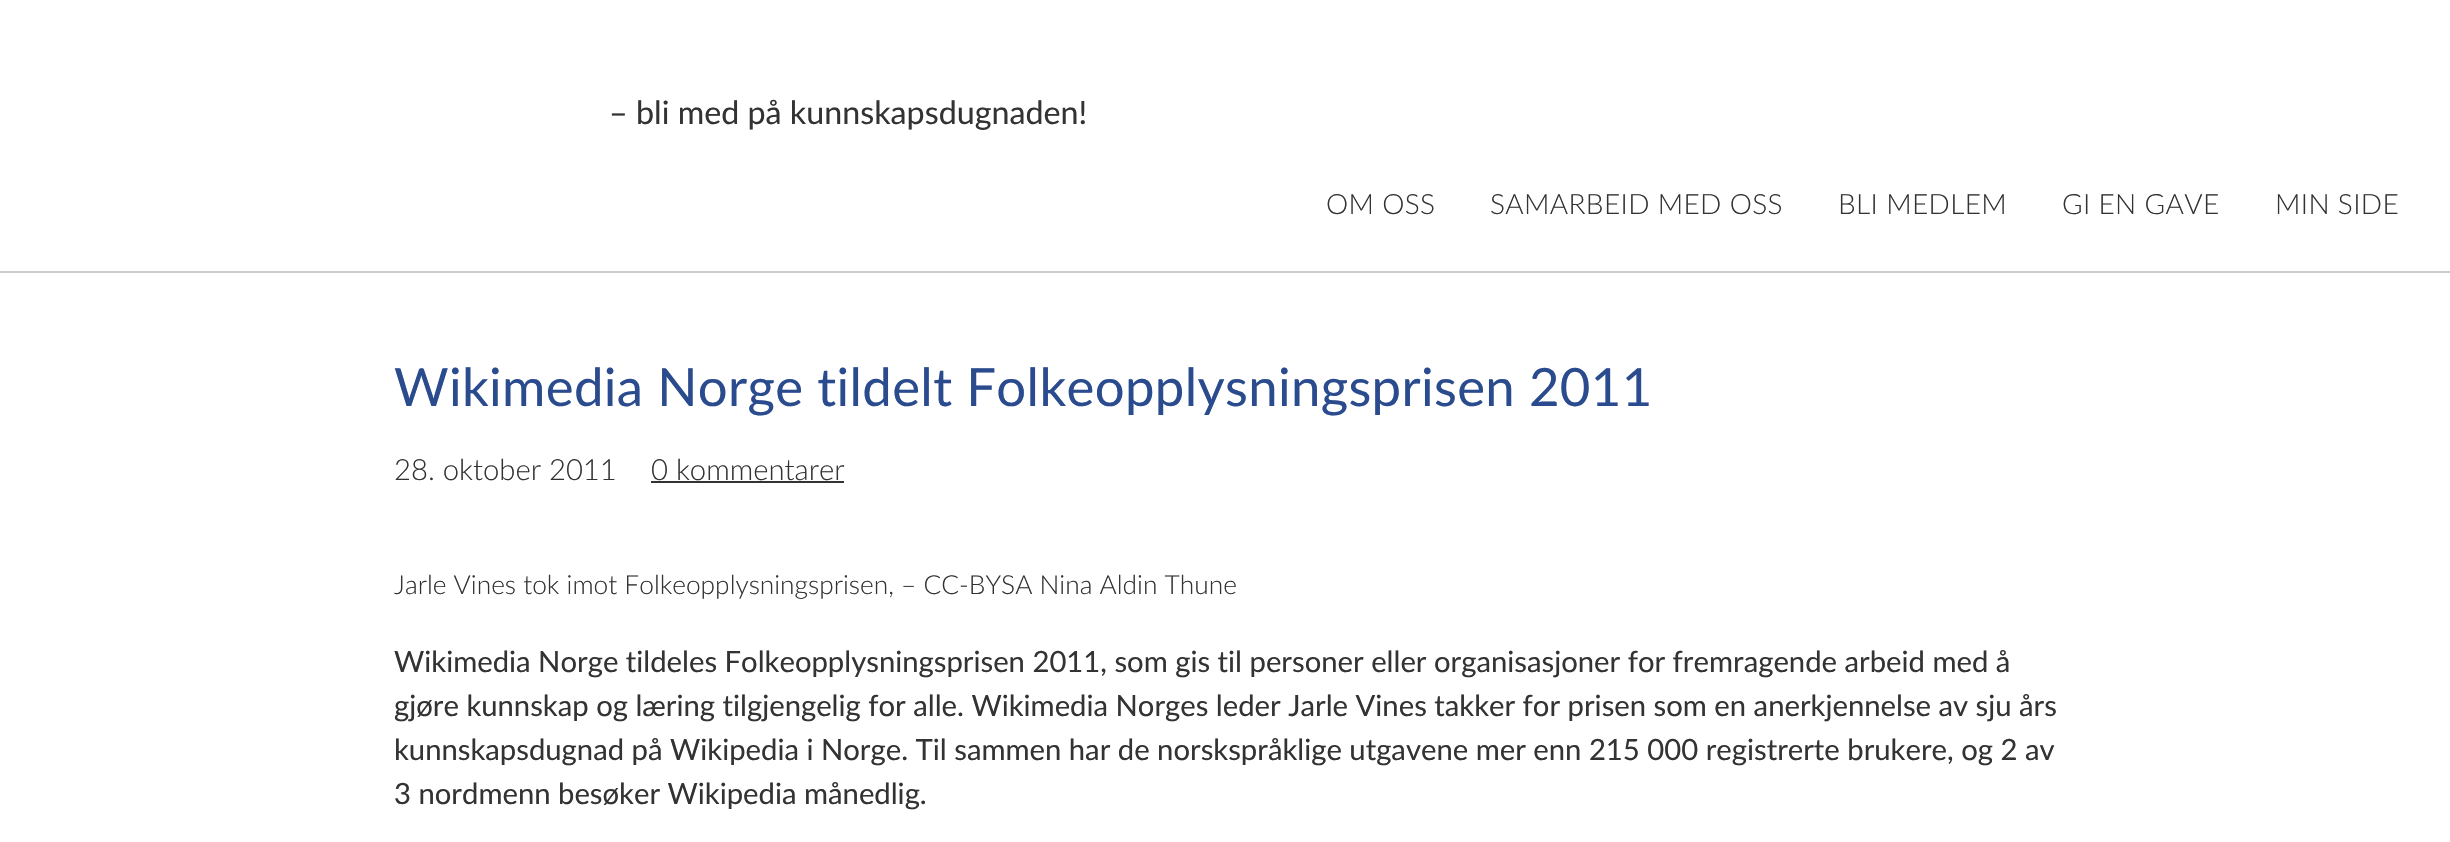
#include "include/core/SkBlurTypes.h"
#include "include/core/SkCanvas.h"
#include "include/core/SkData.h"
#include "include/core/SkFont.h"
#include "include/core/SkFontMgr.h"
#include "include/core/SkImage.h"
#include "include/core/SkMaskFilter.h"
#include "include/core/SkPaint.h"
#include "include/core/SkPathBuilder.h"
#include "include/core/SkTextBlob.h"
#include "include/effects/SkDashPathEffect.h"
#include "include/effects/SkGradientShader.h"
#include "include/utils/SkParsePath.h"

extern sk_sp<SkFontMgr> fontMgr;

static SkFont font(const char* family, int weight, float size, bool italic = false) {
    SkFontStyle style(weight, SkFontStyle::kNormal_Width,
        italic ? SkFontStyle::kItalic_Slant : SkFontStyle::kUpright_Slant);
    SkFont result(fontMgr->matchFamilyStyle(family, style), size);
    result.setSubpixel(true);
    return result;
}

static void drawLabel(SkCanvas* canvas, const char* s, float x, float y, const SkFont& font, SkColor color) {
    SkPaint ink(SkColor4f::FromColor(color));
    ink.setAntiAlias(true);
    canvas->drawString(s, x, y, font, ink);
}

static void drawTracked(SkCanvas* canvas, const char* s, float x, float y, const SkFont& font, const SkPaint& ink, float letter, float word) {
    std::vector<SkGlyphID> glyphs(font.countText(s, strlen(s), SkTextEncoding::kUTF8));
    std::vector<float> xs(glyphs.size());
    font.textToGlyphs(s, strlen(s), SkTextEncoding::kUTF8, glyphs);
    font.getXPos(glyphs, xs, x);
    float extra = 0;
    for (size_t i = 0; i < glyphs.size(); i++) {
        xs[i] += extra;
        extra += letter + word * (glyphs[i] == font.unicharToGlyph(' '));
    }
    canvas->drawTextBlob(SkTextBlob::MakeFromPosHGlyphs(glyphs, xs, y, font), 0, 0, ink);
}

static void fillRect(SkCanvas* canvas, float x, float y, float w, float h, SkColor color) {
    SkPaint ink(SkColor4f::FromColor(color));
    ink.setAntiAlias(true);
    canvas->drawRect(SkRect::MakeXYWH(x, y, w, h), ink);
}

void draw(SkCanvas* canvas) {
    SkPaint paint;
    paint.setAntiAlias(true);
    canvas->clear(0xFFFFFFFF);
    fillRect(canvas, 0, 271, 2450, 2, 0xFFCCCCCC);
    SkFont font1 = font("Lato", 400, 32.25f);
    drawLabel(canvas, "– bli med på kunnskapsdugnaden!", 609, 124, font1, 0xFF333333);
    SkFont font2 = font("Lato", 300, 28);
    paint.setColor(0xFF333333);
    drawTracked(canvas, "OM OSS", 1326, 214, font2, paint, 0.35f, 0);
    drawTracked(canvas, "SAMARBEID MED OSS", 1490, 214, font2, paint, 0.35f, 0);
    drawTracked(canvas, "BLI MEDLEM", 1838, 214, font2, paint, 0.35f, 0);
    drawTracked(canvas, "GI EN GAVE", 2062, 214, font2, paint, 0.35f, 0);
    drawTracked(canvas, "MIN SIDE", 2275, 214, font2, paint, 0.35f, 0);
    SkFont font3 = font("Lato", 400, 52.7f);
    paint.setColor(0xFF2A4B8D);
    drawTracked(canvas, "Wikimedia Norge tildelt Folkeopplysningsprisen 2011", 394, 406, font3, paint, 0.35f, 0);
    SkFont font4 = font("Lato", 300, 29.25f);
    drawLabel(canvas, "28. oktober 2011", 394, 480, font4, 0xFF333333);
    drawLabel(canvas, "0 kommentarer", 651, 480, font4, 0xFF333333);
    fillRect(canvas, 651, 481, 193, 2, 0xFF333333);
    SkFont font5 = font("Lato", 300, 26.3f);
    drawLabel(canvas, "Jarle Vines tok imot Folkeopplysningsprisen, – CC-BYSA Nina Aldin Thune", 394, 594, font5, 0xFF333333);
    SkFont font6 = font("Lato", 400, 29.25f);
    drawLabel(canvas, "Wikimedia Norge tildeles Folkeopplysningsprisen 2011, som gis til personer eller organisasjoner for fremragende arbeid med å", 394, 672, font6, 0xFF333333);
    drawLabel(canvas, "gjøre kunnskap og læring tilgjengelig for alle. Wikimedia Norges leder Jarle Vines takker for prisen som en anerkjennelse av sju års", 394, 716, font6, 0xFF333333);
    drawLabel(canvas, "kunnskapsdugnad på Wikipedia i Norge. Til sammen har de norskspråklige utgavene mer enn 215 000 registrerte brukere, og 2 av", 394, 760, font6, 0xFF333333);
    drawLabel(canvas, "3 nordmenn besøker Wikipedia månedlig.", 394, 804, font6, 0xFF333333);
}
